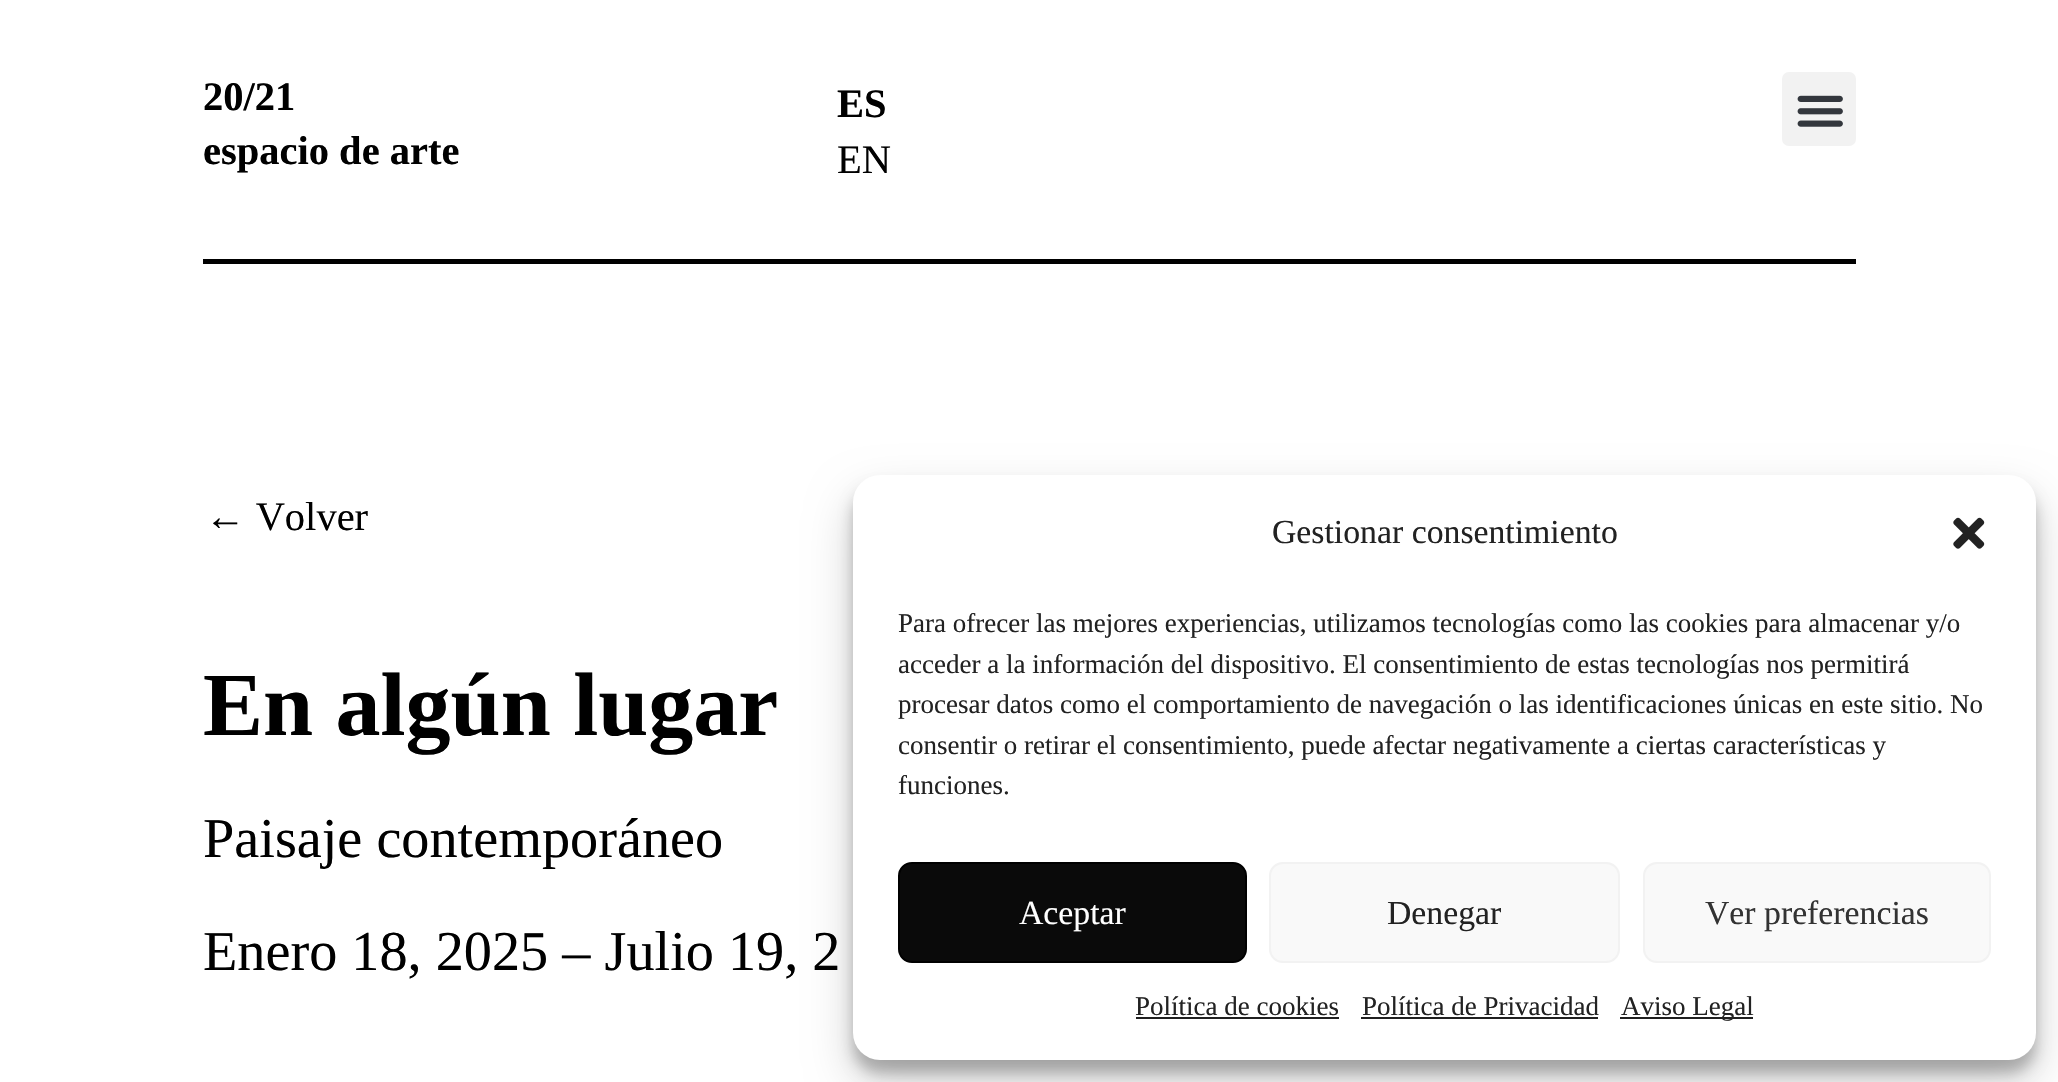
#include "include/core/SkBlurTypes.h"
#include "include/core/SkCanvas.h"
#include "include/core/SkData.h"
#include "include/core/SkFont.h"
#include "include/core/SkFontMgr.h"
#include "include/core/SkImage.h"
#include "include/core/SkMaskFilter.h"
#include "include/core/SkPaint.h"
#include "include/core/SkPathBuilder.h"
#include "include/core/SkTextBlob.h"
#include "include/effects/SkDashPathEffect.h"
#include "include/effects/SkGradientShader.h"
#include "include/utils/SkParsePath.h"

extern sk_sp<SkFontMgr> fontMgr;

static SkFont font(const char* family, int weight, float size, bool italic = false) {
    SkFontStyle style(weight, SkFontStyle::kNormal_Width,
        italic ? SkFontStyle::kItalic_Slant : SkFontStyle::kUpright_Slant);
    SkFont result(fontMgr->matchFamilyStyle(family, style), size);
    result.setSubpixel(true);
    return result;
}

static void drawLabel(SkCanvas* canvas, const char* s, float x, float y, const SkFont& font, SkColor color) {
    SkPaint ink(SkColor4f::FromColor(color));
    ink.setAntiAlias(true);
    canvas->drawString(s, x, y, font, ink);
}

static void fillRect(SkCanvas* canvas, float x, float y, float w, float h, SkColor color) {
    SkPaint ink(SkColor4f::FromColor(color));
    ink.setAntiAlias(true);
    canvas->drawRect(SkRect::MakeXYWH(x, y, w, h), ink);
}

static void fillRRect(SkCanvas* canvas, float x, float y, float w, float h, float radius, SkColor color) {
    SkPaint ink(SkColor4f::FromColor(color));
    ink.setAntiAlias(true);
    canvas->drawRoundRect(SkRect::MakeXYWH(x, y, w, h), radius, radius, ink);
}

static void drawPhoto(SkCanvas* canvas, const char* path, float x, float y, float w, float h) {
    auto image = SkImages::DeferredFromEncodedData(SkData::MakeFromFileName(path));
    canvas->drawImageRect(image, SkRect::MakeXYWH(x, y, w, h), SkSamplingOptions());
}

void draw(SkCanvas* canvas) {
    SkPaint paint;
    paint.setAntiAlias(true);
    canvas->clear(0xFFFFFFFF);
    fillRect(canvas, 203, 259, 1653, 5, 0xFF000000);
    SkFont font1 = font("Liberation Serif", 700, 40.5f);
    drawLabel(canvas, "20/21", 203, 110, font1, 0xFF000000);
    drawLabel(canvas, "espacio de arte", 203, 164, font1, 0xFF000000);
    drawLabel(canvas, "ES", 837, 117, font1, 0xFF000000);
    SkFont font2 = font("Liberation Serif", 400, 40.5f);
    drawLabel(canvas, "EN", 837, 173, font2, 0xFF000000);
    fillRRect(canvas, 1782, 72, 74, 74, 7, 0xFFF2F2F2);
    drawPhoto(canvas, "assets/img1.png", 1797, 95, 46, 32);
    drawLabel(canvas, "← Volver", 205, 530, font2, 0xFF000000);
    SkFont font3 = font("Liberation Serif", 700, 90);
    drawLabel(canvas, "En algún lugar", 203, 735, font3, 0xFF000000);
    SkFont font4 = font("Liberation Serif", 400, 56.25f);
    drawLabel(canvas, "Paisaje contemporáneo", 203, 857, font4, 0xFF000000);
    drawLabel(canvas, "Enero 18, 2025 – Julio 19, 2", 203, 970, font4, 0xFF000000);
    paint.setColor(0x3B000000);
    paint.setMaskFilter(SkMaskFilter::MakeBlur(kNormal_SkBlurStyle, 7));
    canvas->drawRoundRect(SkRect::MakeXYWH(853, 488, 1183, 585), 27, 27, paint);
    paint.setMaskFilter(nullptr);
    paint.setColor(0x30000000);
    paint.setMaskFilter(SkMaskFilter::MakeBlur(kNormal_SkBlurStyle, 22.5f));
    canvas->drawRoundRect(SkRect::MakeXYWH(853, 497, 1183, 585), 27, 27, paint);
    paint.setMaskFilter(nullptr);
    fillRRect(canvas, 853, 475, 1183, 585, 27, 0xFFFFFFFF);
    SkFont font5 = font("Liberation Serif", 400, 33.75f);
    drawLabel(canvas, "Gestionar consentimiento", 1272, 543, font5, 0xFF222222);
    drawPhoto(canvas, "assets/img2.png", 1953, 517, 32, 32);
    SkFont font6 = font("Liberation Serif", 400, 27);
    drawLabel(canvas, "Para ofrecer las mejores experiencias, utilizamos tecnologías como las cookies para almacenar y/o", 898, 632, font6, 0xFF222222);
    drawLabel(canvas, "acceder a la información del dispositivo. El consentimiento de estas tecnologías nos permitirá", 898, 673, font6, 0xFF222222);
    drawLabel(canvas, "procesar datos como el comportamiento de navegación o las identificaciones únicas en este sitio. No", 898, 713, font6, 0xFF222222);
    drawLabel(canvas, "consentir o retirar el consentimiento, puede afectar negativamente a ciertas características y", 898, 754, font6, 0xFF222222);
    drawLabel(canvas, "funciones.", 898, 794, font6, 0xFF222222);
    paint.setColor(0xFF0A0A0A);
    canvas->drawRoundRect(SkRect::MakeXYWH(899, 863, 347, 99), 13, 13, paint);
    paint.setStroke(true);
    paint.setStrokeWidth(2);
    paint.setColor(0xFF000000);
    canvas->drawRoundRect(SkRect::MakeXYWH(899, 863, 347, 99), 13, 13, paint);
    drawLabel(canvas, "Aceptar", 1019, 924, font5, 0xFFFFFFFF);
    paint.setStroke(false);
    paint.setColor(0xFFF9F9F9);
    canvas->drawRoundRect(SkRect::MakeXYWH(1270, 863, 349, 99), 13, 13, paint);
    paint.setStroke(true);
    paint.setColor(0xFFF2F2F2);
    canvas->drawRoundRect(SkRect::MakeXYWH(1270, 863, 349, 99), 13, 13, paint);
    drawLabel(canvas, "Denegar", 1387, 924, font5, 0xFF222222);
    paint.setStroke(false);
    paint.setColor(0xFFF9F9F9);
    canvas->drawRoundRect(SkRect::MakeXYWH(1644, 863, 346, 99), 13, 13, paint);
    paint.setStroke(true);
    paint.setColor(0xFFF2F2F2);
    canvas->drawRoundRect(SkRect::MakeXYWH(1644, 863, 346, 99), 13, 13, paint);
    drawLabel(canvas, "Ver preferencias", 1705, 924, font5, 0xFF333333);
    drawLabel(canvas, "Política de cookies", 1135, 1015, font6, 0xFF222222);
    fillRect(canvas, 1136, 1017, 203, 2, 0xFF1F1F1F);
    drawLabel(canvas, "Política de Privacidad", 1362, 1015, font6, 0xFF222222);
    fillRect(canvas, 1361, 1017, 237, 2, 0xFF1F1F1F);
    fillRect(canvas, 1620, 1017, 133, 2, 0xFF1F1F1F);
    drawLabel(canvas, "Aviso Legal", 1621, 1015, font6, 0xFF222222);
}
